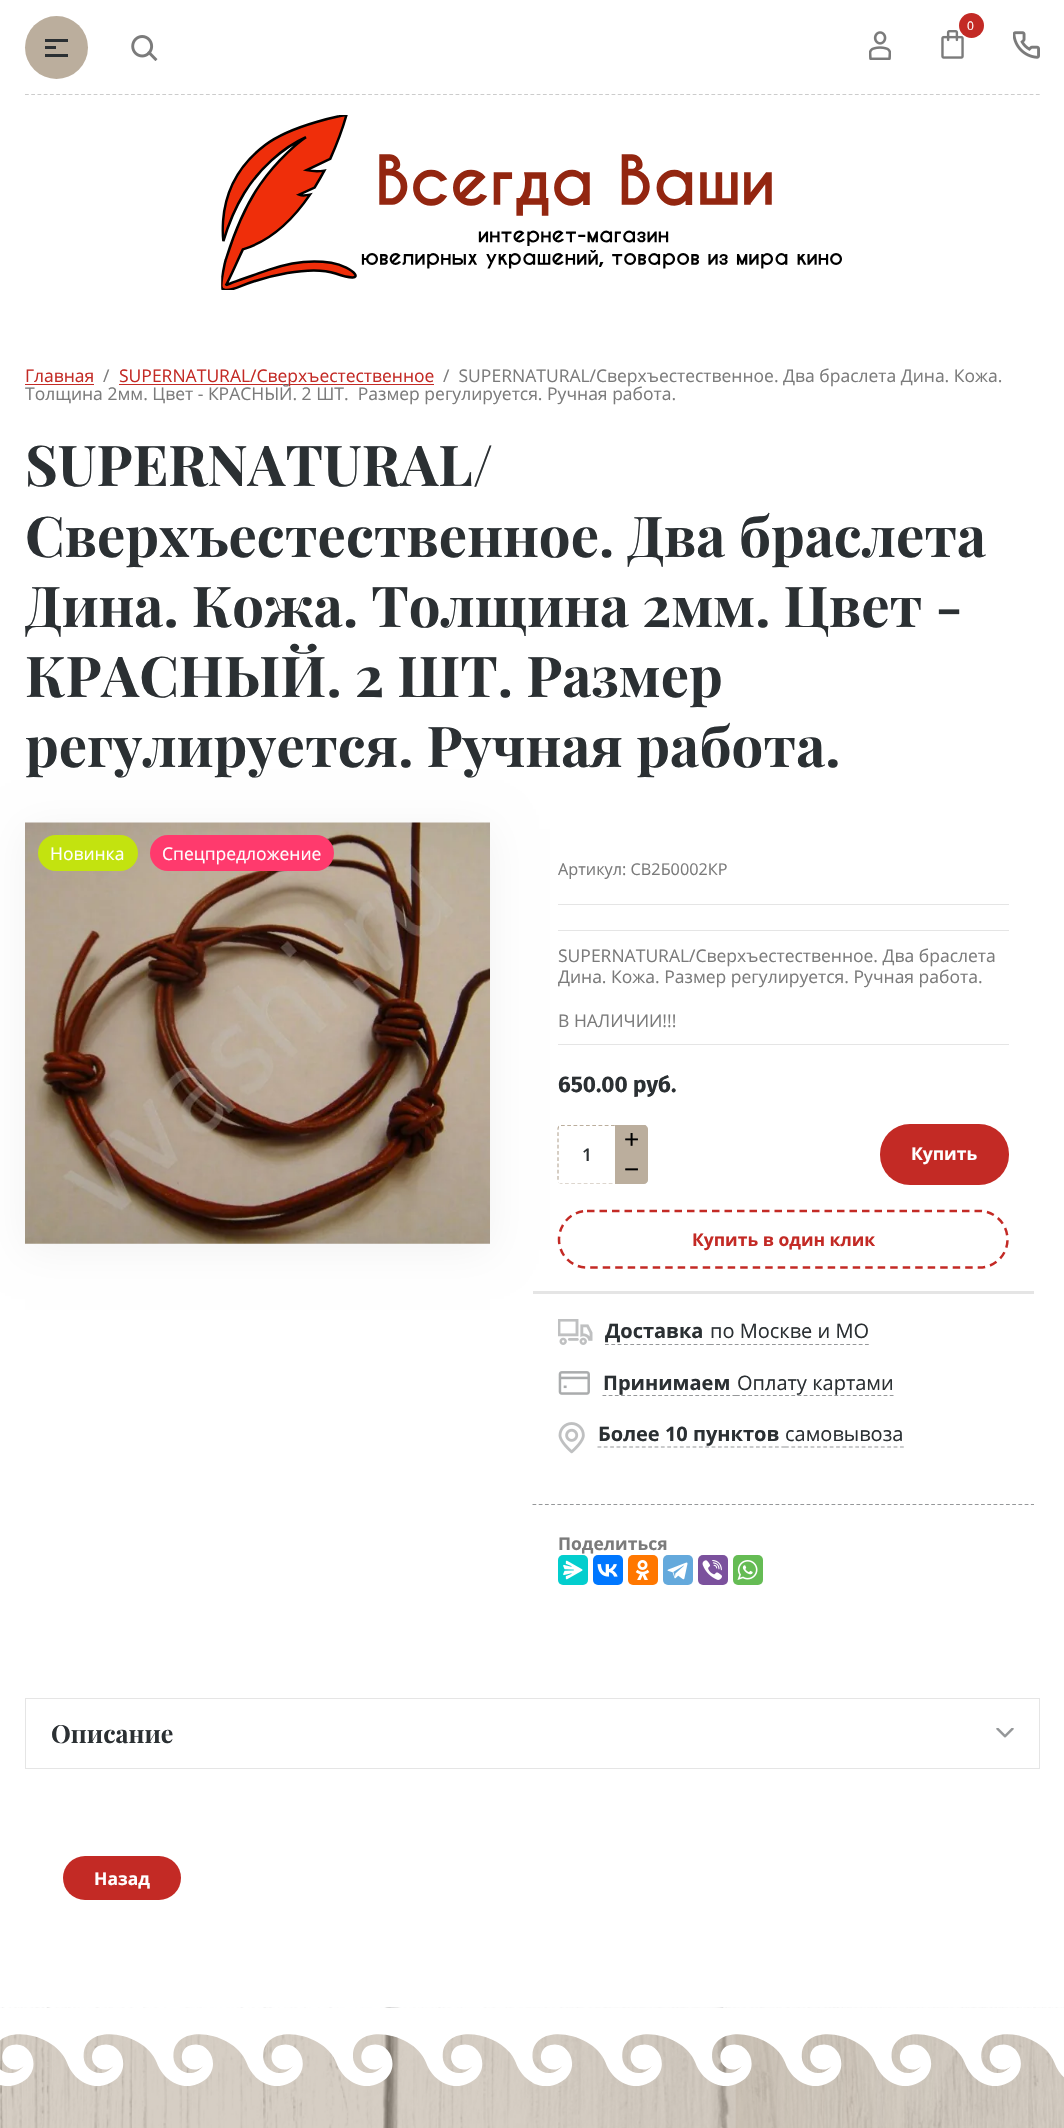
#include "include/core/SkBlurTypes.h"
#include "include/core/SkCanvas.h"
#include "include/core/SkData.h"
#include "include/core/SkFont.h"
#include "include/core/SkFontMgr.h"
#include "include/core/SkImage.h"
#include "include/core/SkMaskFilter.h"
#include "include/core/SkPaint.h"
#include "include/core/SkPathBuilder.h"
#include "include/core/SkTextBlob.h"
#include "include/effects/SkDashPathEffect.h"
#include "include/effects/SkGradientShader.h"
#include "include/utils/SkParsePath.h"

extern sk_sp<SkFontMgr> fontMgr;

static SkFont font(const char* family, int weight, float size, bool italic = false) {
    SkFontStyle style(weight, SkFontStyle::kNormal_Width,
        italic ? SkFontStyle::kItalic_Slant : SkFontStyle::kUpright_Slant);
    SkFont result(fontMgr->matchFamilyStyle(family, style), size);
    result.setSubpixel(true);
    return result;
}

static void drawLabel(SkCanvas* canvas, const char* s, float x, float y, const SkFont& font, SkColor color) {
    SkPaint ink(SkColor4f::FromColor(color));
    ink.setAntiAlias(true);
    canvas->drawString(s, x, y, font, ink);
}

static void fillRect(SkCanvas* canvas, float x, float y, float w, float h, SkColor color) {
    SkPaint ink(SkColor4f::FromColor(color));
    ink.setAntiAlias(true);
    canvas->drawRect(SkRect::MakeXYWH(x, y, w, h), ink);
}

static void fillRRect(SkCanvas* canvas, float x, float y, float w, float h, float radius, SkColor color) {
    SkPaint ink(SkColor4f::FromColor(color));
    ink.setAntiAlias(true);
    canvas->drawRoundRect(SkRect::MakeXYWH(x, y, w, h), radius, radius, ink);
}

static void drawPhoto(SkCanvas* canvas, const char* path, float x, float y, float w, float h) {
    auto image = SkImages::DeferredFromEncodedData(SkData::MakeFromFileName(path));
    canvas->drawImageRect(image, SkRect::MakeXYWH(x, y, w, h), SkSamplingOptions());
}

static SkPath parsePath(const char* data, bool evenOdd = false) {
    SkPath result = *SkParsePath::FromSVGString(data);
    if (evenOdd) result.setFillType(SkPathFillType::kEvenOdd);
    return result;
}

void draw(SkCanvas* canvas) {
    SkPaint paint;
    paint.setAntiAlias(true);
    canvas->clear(0xFFFFFFFF);
    paint.setStroke(true);
    paint.setStrokeWidth(1.2f);
    paint.setColor(0xFFCCCCCC);
    paint.setPathEffect(SkDashPathEffect::Make({{3.75f, 2.49f}}, 0));
    canvas->drawPath(parsePath("M25 94.5H1040"), paint);
    paint.setPathEffect(nullptr);
    paint.setStroke(false);
    paint.setColor(0xFFBBAE9D);
    canvas->drawCircle(56.5f, 47.5f, 31.5f, paint);
    fillRect(canvas, 45, 39, 23, 3, 0xFF2B3033);
    fillRect(canvas, 45, 46, 11, 3, 0xFF2B3033);
    fillRect(canvas, 45, 54, 23, 3, 0xFF2B3033);
    drawPhoto(canvas, "assets/img1.png", 131, 35, 27, 26);
    drawPhoto(canvas, "assets/img2.png", 941, 30, 23, 29);
    paint.setColor(0xFFC32A25);
    canvas->drawCircle(971.5f, 25.5f, 12.5f, paint);
    SkFont font1 = font("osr", 400, 12);
    drawLabel(canvas, "0", 967, 30, font1, 0xFFFFFFFF);
    drawPhoto(canvas, "assets/img3.png", 869, 31, 22, 29);
    drawPhoto(canvas, "assets/img4.png", 1013, 31, 27, 28);
    drawPhoto(canvas, "assets/img5.png", 221, 115, 621, 175);
    SkFont font2 = font("osr", 400, 17.5f);
    drawLabel(canvas, "Главная", 25, 382, font2, 0xFFC32A25);
    fillRect(canvas, 25, 384, 69, 1, 0xFFC32A25);
    drawLabel(canvas, "/", 103, 382, font2, 0xFF7B7B7B);
    fillRect(canvas, 119, 384, 315, 1, 0xFFC32A25);
    drawLabel(canvas, "SUPERNATURAL/Сверхъестественное", 119, 382, font2, 0xFFC32A25);
    drawLabel(canvas, "/  SUPERNATURAL/Сверхъестественное. Два браслета Дина. Кожа.", 443, 382, font2, 0xFF7B7B7B);
    drawLabel(canvas, "Толщина 2мм. Цвет - КРАСНЫЙ. 2 ШТ.  Размер регулируется. Ручная работа.", 25, 400, font2, 0xFF7B7B7B);
    SkFont font3 = font("Playfair Display", 700, 56.25f);
    drawLabel(canvas, "SUPERNATURAL/", 25, 486, font3, 0xFF2B3033);
    drawLabel(canvas, "Сверхъестественное. Два браслета", 25, 557, font3, 0xFF2B3033);
    drawLabel(canvas, "Дина. Кожа. Толщина 2мм. Цвет -", 25, 627, font3, 0xFF2B3033);
    drawLabel(canvas, "КРАСНЫЙ. 2 ШТ. Размер", 25, 697, font3, 0xFF2B3033);
    drawLabel(canvas, "регулируется. Ручная работа.", 25, 767, font3, 0xFF2B3033);
    fillRect(canvas, 533, 1291, 501, 3, 0xFFE5E5E5);
    paint.setColor(0x0D000000);
    paint.setMaskFilter(SkMaskFilter::MakeBlur(kNormal_SkBlurStyle, 20));
    canvas->drawRect(SkRect::MakeXYWH(25, 829, 465, 421), paint);
    paint.setMaskFilter(nullptr);
    drawPhoto(canvas, "assets/img6.png", 25, 822, 465, 422);
    fillRRect(canvas, 38, 835, 100, 36, 18, 0xFFC3E30F);
    drawLabel(canvas, "Новинка", 50, 860, font2, 0xFFFFFFFF);
    fillRRect(canvas, 150, 835, 184, 36, 18, 0xFFFF3A6D);
    drawLabel(canvas, "Спецпредложение", 162, 860, font2, 0xFFFFFFFF);
    fillRect(canvas, 558, 904, 451, 1, 0xFFE5E5E5);
    SkFont font4 = font("osr", 400, 16.25f);
    drawLabel(canvas, "Артикул: СВ2Б0002КР", 558, 875, font4, 0xFF7B7B7B);
    fillRect(canvas, 558, 930, 451, 1, 0xFFE5E5E5);
    fillRect(canvas, 558, 1044, 451, 1, 0xFFE5E5E5);
    drawLabel(canvas, "SUPERNATURAL/Сверхъестественное. Два браслета", 558, 962, font2, 0xFF7B7B7B);
    drawLabel(canvas, "Дина. Кожа. Размер регулируется. Ручная работа.", 558, 983, font2, 0xFF7B7B7B);
    drawLabel(canvas, "В НАЛИЧИИ!!!", 558, 1027, font2, 0xFF7B7B7B);
    SkFont font5 = font("Fira Sans", 700, 22.5f);
    drawLabel(canvas, "650.00 руб.", 558, 1092, font5, 0xFF2B3033);
    paint.setStroke(true);
    paint.setColor(0xFFBBAE9D);
    paint.setPathEffect(SkDashPathEffect::Make({{3.75f, 2.5f}}, 0));
    canvas->drawPath(parsePath("M561 1125.5H644C645.5 1125.5 647 1127 647 1129V1180C647 1181.5 645.5 1183 644 1183H561C559.5 1183 558 1181.5 558 1180V1129C558 1127 559.5 1125.5 561 1125.5Z"), paint);
    paint.setPathEffect(nullptr);
    paint.setStroke(false);
    canvas->drawPath(parsePath("M615 1125H644C646 1125 648 1127 648 1129V1154H615Z"), paint);
    SkFont font6 = font("Liberation Sans", 400, 26);
    drawLabel(canvas, "+", 624, 1148, font6, 0xFF000000);
    fillRect(canvas, 559, 1126, 56, 57, 0xFFFFFFFF);
    SkFont font7 = font("Open Sans", 600, 17.5f);
    drawLabel(canvas, "1", 582, 1161, font7, 0xFF2B3033);
    canvas->drawPath(parsePath("M615 1154H648V1180C648 1182 646 1184 644 1184H615Z"), paint);
    drawLabel(canvas, "−", 624, 1178, font6, 0xFF000000);
    fillRRect(canvas, 880, 1124, 129, 61, 30, 0xFFC32A25);
    SkFont font8 = font("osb", 700, 17.5f);
    drawLabel(canvas, "Купить", 911, 1160, font8, 0xFFFFFFFF);
    paint.setStroke(true);
    paint.setStrokeWidth(2.5f);
    paint.setColor(0xFFC32A25);
    paint.setPathEffect(SkDashPathEffect::Make({{7.5f, 5}}, 0));
    canvas->drawPath(parsePath("M587 1211H979.5C995 1211 1007.5 1224 1007.5 1239.5C1007.5 1255 995 1267.5 979.5 1267.5H587C571.5 1267.5 559 1255 559 1239.5C559 1224 571.5 1211 587 1211Z"), paint);
    paint.setPathEffect(nullptr);
    drawLabel(canvas, "Купить в один клик", 692, 1246, font8, 0xFFC32A25);
    paint.setStrokeWidth(1.2f);
    paint.setColor(0xFF959799);
    paint.setPathEffect(SkDashPathEffect::Make({{3.75f, 2.48f}}, 0));
    canvas->drawPath(parsePath("M532.5 1504.5H1034"), paint);
    paint.setPathEffect(nullptr);
    drawPhoto(canvas, "assets/img7.png", 558, 1319, 35, 26);
    paint.setPathEffect(SkDashPathEffect::Make({{3.75f, 2.58f}}, 0));
    canvas->drawPath(parsePath("M605 1344.5H710"), paint);
    paint.setPathEffect(nullptr);
    SkFont font9 = font("osb", 700, 20);
    drawLabel(canvas, "Доставка", 605, 1338, font9, 0xFF2B3033);
    paint.setPathEffect(SkDashPathEffect::Make({{3.75f, 2.45f}}, 0));
    canvas->drawPath(parsePath("M710 1344.5H869"), paint);
    paint.setPathEffect(nullptr);
    SkFont font10 = font("osr", 400, 20);
    drawLabel(canvas, "по Москве и МО", 710, 1338, font10, 0xFF2B3033);
    drawPhoto(canvas, "assets/img8.png", 558, 1371, 32, 24);
    paint.setPathEffect(SkDashPathEffect::Make({{3.75f, 2.44f}}, 0));
    canvas->drawPath(parsePath("M602.5 1395.5H736"), paint);
    paint.setPathEffect(nullptr);
    drawLabel(canvas, "Принимаем", 603, 1390, font9, 0xFF2B3033);
    paint.setPathEffect(SkDashPathEffect::Make({{3.75f, 2.4f}}, 0));
    canvas->drawPath(parsePath("M736 1395.5H894"), paint);
    paint.setPathEffect(nullptr);
    drawLabel(canvas, "Оплату картами", 737, 1390, font10, 0xFF2B3033);
    drawPhoto(canvas, "assets/img9.png", 558, 1422, 27, 32);
    paint.setPathEffect(SkDashPathEffect::Make({{3.75f, 2.59f}}, 0));
    canvas->drawPath(parsePath("M597.5 1447H785"), paint);
    paint.setPathEffect(nullptr);
    drawLabel(canvas, "Более 10 пунктов", 598, 1441, font9, 0xFF2B3033);
    paint.setPathEffect(SkDashPathEffect::Make({{3.75f, 2.64f}}, 0));
    canvas->drawPath(parsePath("M785 1447H904"), paint);
    paint.setPathEffect(nullptr);
    drawLabel(canvas, "самовывоза", 785, 1441, font10, 0xFF2B3033);
    drawLabel(canvas, "Поделиться", 558, 1550, font8, 0xFF7B7B7B);
    fillRRect(canvas, 558, 1555, 30, 30, 5, 0xFF03CECE);
    drawPhoto(canvas, "assets/img10.png", 563, 1560, 20, 20);
    fillRRect(canvas, 593, 1555, 30, 30, 5, 0xFF0077FF);
    drawPhoto(canvas, "assets/img11.png", 597, 1564, 21, 13);
    fillRRect(canvas, 628, 1555, 30, 30, 5, 0xFFFF7700);
    drawPhoto(canvas, "assets/img12.png", 635, 1560, 15, 20);
    fillRRect(canvas, 663, 1555, 30, 30, 5, 0xFF64A9DC);
    drawPhoto(canvas, "assets/img13.png", 667, 1562, 21, 18);
    fillRRect(canvas, 698, 1555, 30, 30, 5, 0xFF7B519D);
    drawPhoto(canvas, "assets/img14.png", 702, 1560, 20, 20);
    fillRRect(canvas, 733, 1555, 30, 30, 5, 0xFF65BC54);
    drawPhoto(canvas, "assets/img15.png", 737, 1560, 21, 20);
    paint.setStrokeWidth(1);
    paint.setColor(0xFFE5E5E5);
    canvas->drawRect(SkRect::MakeXYWH(25.5f, 1698.5f, 1014, 70), paint);
    SkFont font11 = font("Playfair Display", 700, 25);
    drawLabel(canvas, "Описание", 51, 1743, font11, 0xFF2B3033);
    drawPhoto(canvas, "assets/img16.png", 996, 1728, 18, 10);
    fillRRect(canvas, 63, 1856, 118, 44, 22, 0xFFC32A25);
    drawLabel(canvas, "Назад", 94, 1885, font8, 0xFFFFFFFF);
    fillRect(canvas, 0, 2034, 1064, 94, 0xFFBBAE9D);
    drawPhoto(canvas, "assets/img17.png", 0, 2007, 1064, 121);
    drawPhoto(canvas, "assets/img18.png", 0, 2008, 1064, 78);
}
